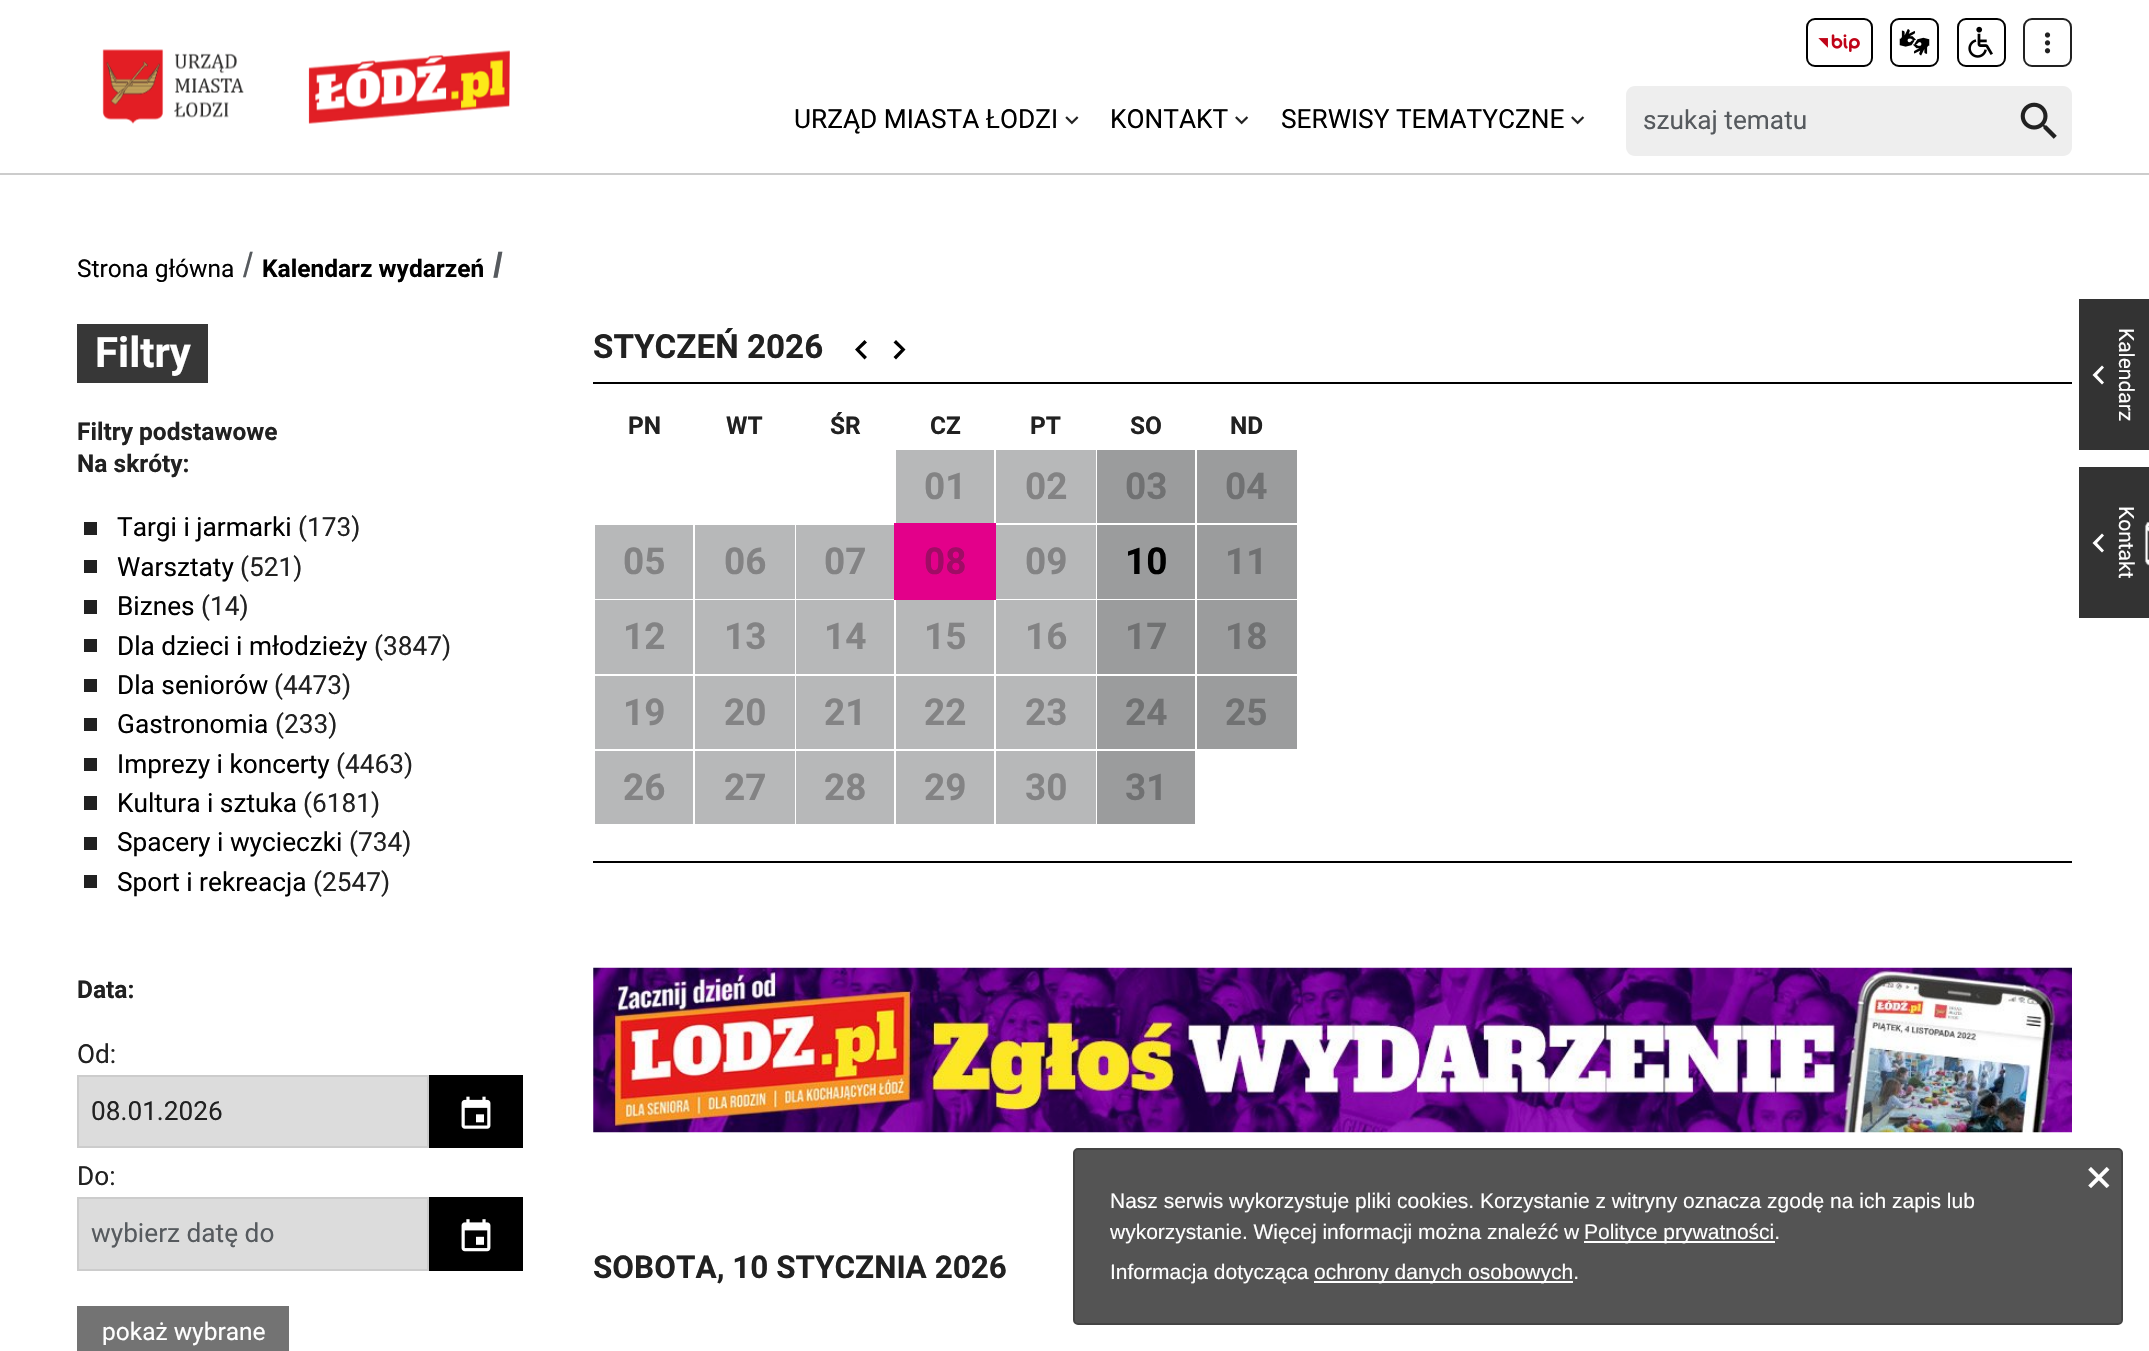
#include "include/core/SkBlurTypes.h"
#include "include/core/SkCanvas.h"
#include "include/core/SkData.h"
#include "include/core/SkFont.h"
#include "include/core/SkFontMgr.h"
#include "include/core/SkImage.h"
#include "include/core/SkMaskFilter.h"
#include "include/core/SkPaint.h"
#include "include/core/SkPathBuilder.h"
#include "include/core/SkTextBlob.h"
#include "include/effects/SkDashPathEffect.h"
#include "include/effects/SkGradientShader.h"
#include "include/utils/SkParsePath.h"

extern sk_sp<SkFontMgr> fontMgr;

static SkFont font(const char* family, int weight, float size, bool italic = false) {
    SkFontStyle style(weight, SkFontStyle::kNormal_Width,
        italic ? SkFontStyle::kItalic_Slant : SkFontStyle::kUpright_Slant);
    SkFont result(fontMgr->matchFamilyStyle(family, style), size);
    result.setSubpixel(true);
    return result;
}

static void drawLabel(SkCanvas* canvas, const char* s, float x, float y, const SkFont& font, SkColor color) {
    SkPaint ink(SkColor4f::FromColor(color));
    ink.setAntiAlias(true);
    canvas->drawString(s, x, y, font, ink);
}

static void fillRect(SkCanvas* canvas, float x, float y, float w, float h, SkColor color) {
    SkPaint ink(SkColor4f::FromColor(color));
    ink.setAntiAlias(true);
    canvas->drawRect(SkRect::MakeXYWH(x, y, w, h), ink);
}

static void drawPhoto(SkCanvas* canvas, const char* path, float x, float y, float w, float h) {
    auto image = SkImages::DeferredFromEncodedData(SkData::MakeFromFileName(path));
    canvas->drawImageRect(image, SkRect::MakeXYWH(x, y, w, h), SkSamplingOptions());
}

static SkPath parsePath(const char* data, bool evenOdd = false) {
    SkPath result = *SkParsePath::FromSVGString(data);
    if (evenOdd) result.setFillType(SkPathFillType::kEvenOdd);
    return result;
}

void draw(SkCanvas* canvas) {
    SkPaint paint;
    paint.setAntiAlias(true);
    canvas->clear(0xFFFFFFFF);
    fillRect(canvas, 0, 173, 2149, 2, 0xFFCCCCCC);
    drawPhoto(canvas, "assets/img1.png", 102, 49, 142, 75);
    drawPhoto(canvas, "assets/img2.png", 308, 50, 202, 74);
    paint.setStroke(true);
    paint.setStrokeWidth(2);
    paint.setColor(0xFF000000);
    canvas->drawRoundRect(SkRect::MakeXYWH(1807, 19, 65, 47), 8, 8, paint);
    drawPhoto(canvas, "assets/img3.png", 1818, 34, 42, 18);
    canvas->drawRoundRect(SkRect::MakeXYWH(1891, 19, 47, 47), 8, 8, paint);
    drawPhoto(canvas, "assets/img4.png", 1899, 29, 31, 27);
    canvas->drawRoundRect(SkRect::MakeXYWH(1958, 19, 47, 47), 8, 8, paint);
    drawPhoto(canvas, "assets/img5.png", 1968, 26, 25, 32);
    paint.setColor(0xFF212121);
    canvas->drawRoundRect(SkRect::MakeXYWH(2024, 19, 47, 47), 8, 8, paint);
    drawPhoto(canvas, "assets/img6.png", 2044, 32, 7, 22);
    SkFont font1 = font("Roboto", 400, 26.25f);
    drawLabel(canvas, "URZĄD MIASTA ŁODZI", 794, 128, font1, 0xFF000000);
    drawPhoto(canvas, "assets/img7.png", 1065, 116, 14, 9);
    drawLabel(canvas, "KONTAKT", 1110, 128, font1, 0xFF000000);
    drawPhoto(canvas, "assets/img8.png", 1235, 116, 14, 9);
    drawLabel(canvas, "SERWISY TEMATYCZNE", 1281, 128, font1, 0xFF000000);
    drawPhoto(canvas, "assets/img8.png", 1571, 116, 14, 9);
    paint.setStroke(false);
    paint.setColor(0xFFEEEEEE);
    canvas->drawPath(parsePath("M1635 86H2006V156H1635C1630 156 1626 152 1626 147V95C1626 90 1630 86 1635 86Z"), paint);
    drawLabel(canvas, "szukaj tematu", 1643, 129, font1, 0xFF565A5E);
    canvas->drawPath(parsePath("M2006 86H2063C2068 86 2072 90 2072 95V147C2072 152 2068 156 2063 156H2006Z"), paint);
    drawPhoto(canvas, "assets/img9.png", 2020, 102, 37, 37);
    SkFont font2 = font("Roboto", 400, 24.5f);
    drawLabel(canvas, "Strona główna", 77, 277, font2, 0xFF000000);
    SkFont font3 = font("Liberation Sans", 400, 35);
    drawLabel(canvas, "/", 243, 277, font3, 0xFF565A5E);
    SkFont font4 = font("Roboto", 700, 24.5f);
    drawLabel(canvas, "Kalendarz wydarzeń", 262, 277, font4, 0xFF000000);
    SkFont font5 = font("Liberation Sans", 700, 35);
    drawLabel(canvas, "/", 493, 277, font5, 0xFF565A5E);
    fillRect(canvas, 77, 324, 131, 59, 0xFF373737);
    SkFont font6 = font("Roboto", 700, 42);
    drawLabel(canvas, "Filtry", 95, 367, font6, 0xFFFFFFFF);
    drawLabel(canvas, "Filtry podstawowe", 77, 440, font4, 0xFF212121);
    drawLabel(canvas, "Na skróty:", 77, 472, font4, 0xFF212121);
    fillRect(canvas, 84, 522, 13, 13, 0xFF212121);
    drawLabel(canvas, "Targi i jarmarki", 117, 536, font1, 0xFF000000);
    drawLabel(canvas, "(173)", 298, 536, font1, 0xFF212121);
    fillRect(canvas, 84, 560, 13, 13, 0xFF212121);
    drawLabel(canvas, "Warsztaty", 117, 576, font1, 0xFF000000);
    drawLabel(canvas, "(521)", 240, 576, font1, 0xFF212121);
    fillRect(canvas, 84, 600, 13, 14, 0xFF212121);
    drawLabel(canvas, "Biznes", 117, 615, font1, 0xFF000000);
    drawLabel(canvas, "(14)", 201, 615, font1, 0xFF212121);
    fillRect(canvas, 84, 639, 13, 13, 0xFF212121);
    drawLabel(canvas, "Dla dzieci i młodzieży", 117, 655, font1, 0xFF000000);
    drawLabel(canvas, "(3847)", 374, 655, font1, 0xFF212121);
    fillRect(canvas, 84, 679, 13, 13, 0xFF212121);
    drawLabel(canvas, "Dla seniorów", 117, 694, font1, 0xFF000000);
    drawLabel(canvas, "(4473)", 274, 694, font1, 0xFF212121);
    fillRect(canvas, 84, 718, 13, 13, 0xFF212121);
    drawLabel(canvas, "Gastronomia", 117, 733, font1, 0xFF000000);
    drawLabel(canvas, "(233)", 275, 733, font1, 0xFF212121);
    fillRect(canvas, 84, 758, 13, 13, 0xFF212121);
    drawLabel(canvas, "Imprezy i koncerty", 117, 773, font1, 0xFF000000);
    drawLabel(canvas, "(4463)", 336, 773, font1, 0xFF212121);
    fillRect(canvas, 84, 796, 13, 14, 0xFF212121);
    drawLabel(canvas, "Kultura i sztuka", 117, 812, font1, 0xFF000000);
    drawLabel(canvas, "(6181)", 303, 812, font1, 0xFF212121);
    fillRect(canvas, 84, 837, 13, 13, 0xFF212121);
    drawLabel(canvas, "Spacery i wycieczki", 117, 851, font1, 0xFF000000);
    drawLabel(canvas, "(734)", 349, 851, font1, 0xFF212121);
    fillRect(canvas, 84, 875, 13, 13, 0xFF212121);
    drawLabel(canvas, "Sport i rekreacja", 117, 891, font1, 0xFF000000);
    drawLabel(canvas, "(2547)", 313, 891, font1, 0xFF212121);
    drawLabel(canvas, "Data:", 77, 998, font4, 0xFF212121);
    drawLabel(canvas, "Od:", 77, 1063, font1, 0xFF212121);
    paint.setColor(0xFFDCDCDC);
    canvas->drawRect(SkRect::MakeXYWH(78, 1076, 350, 71), paint);
    paint.setStroke(true);
    paint.setColor(0xFFCCCCCC);
    canvas->drawRect(SkRect::MakeXYWH(78, 1076, 350, 71), paint);
    drawLabel(canvas, "08.01.2026", 91, 1120, font1, 0xFF212121);
    fillRect(canvas, 429, 1075, 94, 73, 0xFF000000);
    drawPhoto(canvas, "assets/img10.png", 461, 1096, 30, 33);
    drawLabel(canvas, "Do:", 77, 1185, font1, 0xFF212121);
    paint.setStroke(false);
    paint.setColor(0xFFDCDCDC);
    canvas->drawRect(SkRect::MakeXYWH(78, 1198, 350, 72), paint);
    paint.setStroke(true);
    paint.setColor(0xFFCCCCCC);
    canvas->drawRect(SkRect::MakeXYWH(78, 1198, 350, 72), paint);
    drawLabel(canvas, "wybierz datę do", 91, 1242, font1, 0xFF565A5E);
    fillRect(canvas, 429, 1197, 94, 74, 0xFF000000);
    drawPhoto(canvas, "assets/img11.png", 461, 1219, 30, 33);
    fillRect(canvas, 77, 1306, 212, 45, 0xFF737373);
    drawLabel(canvas, "pokaż wybrane", 102, 1340, font2, 0xFFFFFFFF);
    fillRect(canvas, 593, 382, 1479, 2, 0xFF000000);
    SkFont font7 = font("Roboto", 700, 33.25f);
    drawLabel(canvas, "STYCZEŃ 2026", 593, 358, font7, 0xFF212121);
    paint.setStroke(false);
    paint.setColor(0xFF000000);
    canvas->drawPath(parsePath("M867 357L859.5 349.5L867 342.5L864.5 340L855 349.5L864.5 359.5ZM893.5 357L901 349.5L893.5 342.5L896 340L905.5 349.5L896 359.5Z"), paint);
    drawLabel(canvas, "PN", 628, 434, font4, 0xFF212121);
    drawLabel(canvas, "WT", 726, 434, font4, 0xFF212121);
    drawLabel(canvas, "ŚR", 830, 434, font4, 0xFF212121);
    drawLabel(canvas, "CZ", 930, 434, font4, 0xFF212121);
    drawLabel(canvas, "PT", 1030, 434, font4, 0xFF212121);
    drawLabel(canvas, "SO", 1130, 434, font4, 0xFF212121);
    drawLabel(canvas, "ND", 1230, 434, font4, 0xFF212121);
    fillRect(canvas, 896, 450, 98, 73, 0xFFB7B8B9);
    SkFont font8 = font("Roboto", 700, 37);
    drawLabel(canvas, "01", 924, 499, font8, 0xFF838384);
    fillRect(canvas, 996, 450, 100, 73, 0xFFB7B8B9);
    drawLabel(canvas, "02", 1025, 499, font8, 0xFF838384);
    fillRect(canvas, 1097, 450, 98, 73, 0xFF9B9C9D);
    drawLabel(canvas, "03", 1125, 499, font8, 0xFF707172);
    fillRect(canvas, 1197, 450, 100, 73, 0xFF9B9C9D);
    drawLabel(canvas, "04", 1225, 499, font8, 0xFF707172);
    fillRect(canvas, 595, 525, 98, 74, 0xFFB7B8B9);
    drawLabel(canvas, "05", 623, 574, font8, 0xFF838384);
    fillRect(canvas, 695, 525, 100, 74, 0xFFB7B8B9);
    drawLabel(canvas, "06", 724, 574, font8, 0xFF838384);
    fillRect(canvas, 796, 525, 98, 74, 0xFFB7B8B9);
    drawLabel(canvas, "07", 824, 574, font8, 0xFF838384);
    fillRect(canvas, 896, 525, 98, 73, 0xFFE3008A);
    paint.setStroke(true);
    paint.setColor(0xFFE3008A);
    canvas->drawRect(SkRect::MakeXYWH(895, 524, 100, 75), paint);
    drawLabel(canvas, "08", 924, 574, font8, 0xFF9F0C65);
    fillRect(canvas, 996, 525, 100, 74, 0xFFB7B8B9);
    drawLabel(canvas, "09", 1025, 574, font8, 0xFF838384);
    fillRect(canvas, 1097, 525, 98, 74, 0xFF9B9C9D);
    drawLabel(canvas, "10", 1125, 574, font8, 0xFF000000);
    fillRect(canvas, 1197, 525, 100, 74, 0xFF9B9C9D);
    drawLabel(canvas, "11", 1225, 574, font8, 0xFF707172);
    fillRect(canvas, 595, 600, 98, 74, 0xFFB7B8B9);
    drawLabel(canvas, "12", 623, 649, font8, 0xFF838384);
    fillRect(canvas, 695, 600, 100, 74, 0xFFB7B8B9);
    drawLabel(canvas, "13", 724, 649, font8, 0xFF838384);
    fillRect(canvas, 796, 600, 98, 74, 0xFFB7B8B9);
    drawLabel(canvas, "14", 824, 649, font8, 0xFF838384);
    fillRect(canvas, 896, 600, 98, 74, 0xFFB7B8B9);
    drawLabel(canvas, "15", 924, 649, font8, 0xFF838384);
    fillRect(canvas, 996, 600, 100, 74, 0xFFB7B8B9);
    drawLabel(canvas, "16", 1025, 649, font8, 0xFF838384);
    fillRect(canvas, 1097, 600, 98, 74, 0xFF9B9C9D);
    drawLabel(canvas, "17", 1125, 649, font8, 0xFF707172);
    fillRect(canvas, 1197, 600, 100, 74, 0xFF9B9C9D);
    drawLabel(canvas, "18", 1225, 649, font8, 0xFF707172);
    fillRect(canvas, 595, 676, 98, 73, 0xFFB7B8B9);
    drawLabel(canvas, "19", 623, 725, font8, 0xFF838384);
    fillRect(canvas, 695, 676, 100, 73, 0xFFB7B8B9);
    drawLabel(canvas, "20", 724, 725, font8, 0xFF838384);
    fillRect(canvas, 796, 676, 98, 73, 0xFFB7B8B9);
    drawLabel(canvas, "21", 824, 725, font8, 0xFF838384);
    fillRect(canvas, 896, 676, 98, 73, 0xFFB7B8B9);
    drawLabel(canvas, "22", 924, 725, font8, 0xFF838384);
    fillRect(canvas, 996, 676, 100, 73, 0xFFB7B8B9);
    drawLabel(canvas, "23", 1025, 725, font8, 0xFF838384);
    fillRect(canvas, 1097, 676, 98, 73, 0xFF9B9C9D);
    drawLabel(canvas, "24", 1125, 725, font8, 0xFF707172);
    fillRect(canvas, 1197, 676, 100, 73, 0xFF9B9C9D);
    drawLabel(canvas, "25", 1225, 725, font8, 0xFF707172);
    fillRect(canvas, 595, 751, 98, 73, 0xFFB7B8B9);
    drawLabel(canvas, "26", 623, 800, font8, 0xFF838384);
    fillRect(canvas, 695, 751, 100, 73, 0xFFB7B8B9);
    drawLabel(canvas, "27", 724, 800, font8, 0xFF838384);
    fillRect(canvas, 796, 751, 98, 73, 0xFFB7B8B9);
    drawLabel(canvas, "28", 824, 800, font8, 0xFF838384);
    fillRect(canvas, 896, 751, 98, 73, 0xFFB7B8B9);
    drawLabel(canvas, "29", 924, 800, font8, 0xFF838384);
    fillRect(canvas, 996, 751, 100, 73, 0xFFB7B8B9);
    drawLabel(canvas, "30", 1025, 800, font8, 0xFF838384);
    fillRect(canvas, 1097, 751, 98, 73, 0xFF9B9C9D);
    drawLabel(canvas, "31", 1125, 800, font8, 0xFF707172);
    fillRect(canvas, 593, 861, 1479, 2, 0xFF000000);
    drawPhoto(canvas, "assets/img12.png", 593, 967, 1479, 166);
    SkFont font9 = font("Roboto", 700, 31.5f);
    drawLabel(canvas, "SOBOTA, 10 STYCZNIA 2026", 593, 1278, font9, 0xFF212121);
    fillRect(canvas, 2079, 299, 70, 151, 0xFF333333);
    paint.setStroke(false);
    paint.setColor(0xFFFFFFFF);
    canvas->drawPath(parsePath("M2104 382.5L2097 375L2104 367.5L2102 365.5L2092.5 375L2102 384.5Z"), paint);
    SkFont font10 = font("Roboto", 400, 21);
    canvas->save();
    canvas->rotate(90, 2119, 328);
    drawLabel(canvas, "Kalendarz", 2119, 328, font10, 0xFFFFFFFF);
    canvas->restore();
    fillRect(canvas, 2079, 467, 70, 151, 0xFF333333);
    canvas->drawPath(parsePath("M2104 550.5L2097 543L2104 535.5L2102 533.5L2092.5 543L2102 552.5Z"), paint);
    canvas->save();
    canvas->rotate(90, 2119, 506);
    drawLabel(canvas, "Kontakt", 2119, 506, font10, 0xFFFFFFFF);
    canvas->restore();
    drawPhoto(canvas, "assets/img13.png", 2144, 521, 5, 45);
    paint.setColor(0xFF545454);
    canvas->drawRoundRect(SkRect::MakeXYWH(1074, 1149, 1048, 175), 4, 4, paint);
    paint.setStroke(true);
    paint.setColor(0xFF444444);
    canvas->drawRoundRect(SkRect::MakeXYWH(1074, 1149, 1048, 175), 4, 4, paint);
    SkFont font11 = font("DejaVu Sans Mono", 400, 46);
    drawLabel(canvas, "×", 2085, 1192, font11, 0xFFFFFFFF);
    SkFont font12 = font("Liberation Sans", 400, 21);
    drawLabel(canvas, "Nasz serwis wykorzystuje pliki cookies. Korzystanie z witryny oznacza zgodę na ich zapis lub", 1110, 1208, font12, 0xFFFFFFFF);
    drawLabel(canvas, "wykorzystanie. Więcej informacji można znaleźć w", 1110, 1239, font12, 0xFFFFFFFF);
    fillRect(canvas, 1584, 1241, 191, 2, 0xFFFFFFFF);
    drawLabel(canvas, "Polityce prywatności.", 1584, 1239, font12, 0xFFFFFFFF);
    drawLabel(canvas, "Informacja dotycząca", 1110, 1279, font12, 0xFFFFFFFF);
    fillRect(canvas, 1314, 1281, 259, 2, 0xFFFFFFFF);
    drawLabel(canvas, "ochrony danych osobowych.", 1314, 1279, font12, 0xFFFFFFFF);
}
